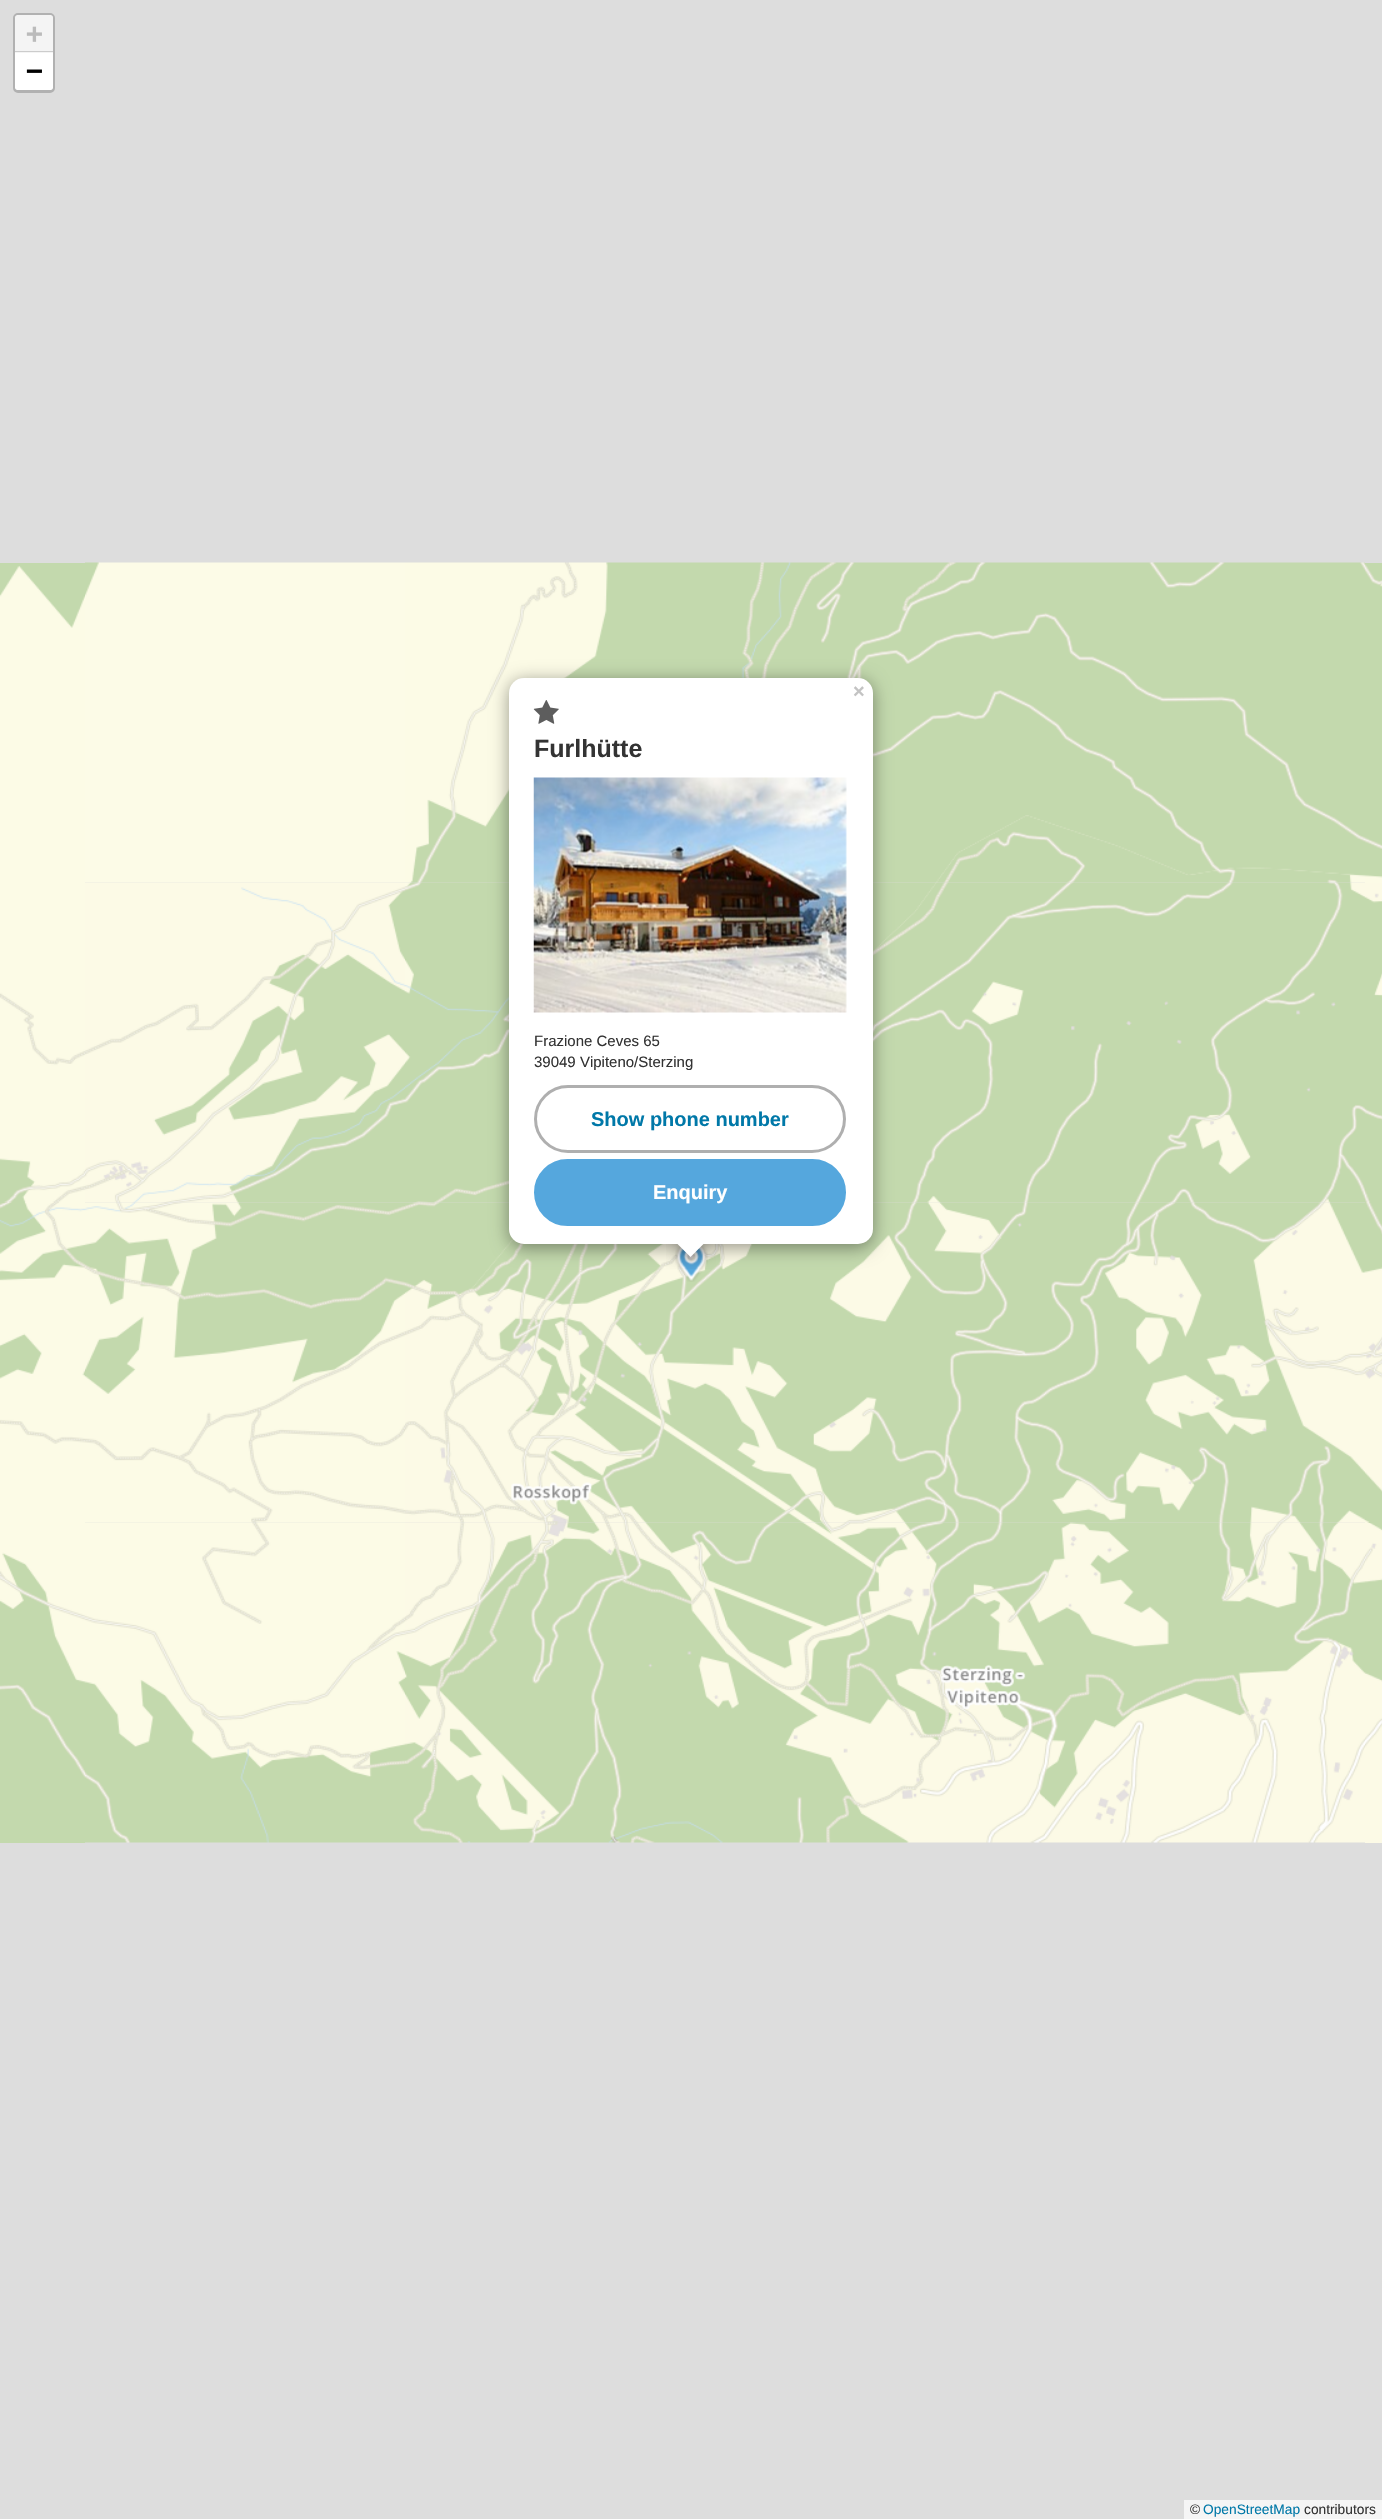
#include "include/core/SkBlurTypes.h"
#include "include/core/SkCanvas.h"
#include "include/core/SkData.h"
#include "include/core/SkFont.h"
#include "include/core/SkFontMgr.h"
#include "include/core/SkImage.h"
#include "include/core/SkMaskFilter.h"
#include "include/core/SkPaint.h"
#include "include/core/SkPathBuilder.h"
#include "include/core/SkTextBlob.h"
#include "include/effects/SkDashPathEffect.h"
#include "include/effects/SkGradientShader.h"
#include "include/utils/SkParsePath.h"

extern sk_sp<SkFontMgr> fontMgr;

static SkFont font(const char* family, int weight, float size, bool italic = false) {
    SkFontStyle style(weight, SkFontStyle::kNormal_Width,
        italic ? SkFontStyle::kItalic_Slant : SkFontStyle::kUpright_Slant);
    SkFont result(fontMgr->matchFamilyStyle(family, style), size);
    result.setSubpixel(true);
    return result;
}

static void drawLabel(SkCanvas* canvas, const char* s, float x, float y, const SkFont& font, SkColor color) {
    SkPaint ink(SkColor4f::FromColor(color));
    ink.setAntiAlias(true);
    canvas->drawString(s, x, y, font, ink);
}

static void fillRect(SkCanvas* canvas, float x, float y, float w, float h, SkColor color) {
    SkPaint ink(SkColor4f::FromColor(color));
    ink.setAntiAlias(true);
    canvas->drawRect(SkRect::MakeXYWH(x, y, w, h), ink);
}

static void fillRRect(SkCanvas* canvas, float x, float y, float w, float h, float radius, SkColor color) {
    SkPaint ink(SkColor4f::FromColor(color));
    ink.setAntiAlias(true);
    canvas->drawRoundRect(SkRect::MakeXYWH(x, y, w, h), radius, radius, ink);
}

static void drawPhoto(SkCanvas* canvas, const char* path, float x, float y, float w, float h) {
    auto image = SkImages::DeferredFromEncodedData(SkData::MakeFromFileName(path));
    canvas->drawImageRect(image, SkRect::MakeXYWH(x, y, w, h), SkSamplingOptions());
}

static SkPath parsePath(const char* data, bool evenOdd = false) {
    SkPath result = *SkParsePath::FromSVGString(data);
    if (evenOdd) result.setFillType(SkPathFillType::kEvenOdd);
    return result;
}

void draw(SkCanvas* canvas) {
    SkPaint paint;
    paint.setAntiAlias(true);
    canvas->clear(0xFFDDDDDD);
    paint.setStroke(true);
    paint.setStrokeWidth(3);
    paint.setColor(0xFFB1B1B1);
    canvas->drawRoundRect(SkRect::MakeXYWH(14.5f, 14.5f, 39, 77), 3.5f, 3.5f, paint);
    paint.setStroke(false);
    paint.setColor(0xFFF4F4F4);
    canvas->drawPath(parsePath("M17.5 15H50.5C52 15 53 16 53 17.5V53H15V17.5C15 16 16 15 17.5 15Z"), paint);
    fillRect(canvas, 15, 51, 38, 1, 0xFFCCCCCC);
    SkFont font1 = font("DejaVu Sans Mono", 700, 28);
    drawLabel(canvas, "+", 26, 43, font1, 0xFFBBBBBB);
    paint.setColor(0xFFFFFFFF);
    canvas->drawPath(parsePath("M15 53H53V87.5C53 89 52 90 50.5 90H17.5C16 90 15 89 15 87.5Z"), paint);
    drawLabel(canvas, "−", 26, 80, font1, 0xFF000000);
    fillRect(canvas, 1184, 2500, 198, 19, 0xFFF5F5F5);
    SkFont font2 = font("Liberation Sans", 400, 13.75f);
    drawLabel(canvas, "©", 1190, 2514, font2, 0xFF333333);
    drawLabel(canvas, "OpenStreetMap", 1203, 2514, font2, 0xFF0078A8);
    drawLabel(canvas, "contributors", 1304, 2514, font2, 0xFF333333);
    drawPhoto(canvas, "assets/img1.png", 0, 563, 85, 320);
    drawPhoto(canvas, "assets/img8.png", 85, 882, 320, 321);
    drawPhoto(canvas, "assets/img2.png", 85, 562, 320, 321);
    drawPhoto(canvas, "assets/img9.png", 405, 882, 104, 321);
    drawPhoto(canvas, "assets/img3.png", 405, 562, 320, 321);
    drawPhoto(canvas, "assets/img10.png", 873, 882, 172, 321);
    drawPhoto(canvas, "assets/img4.png", 725, 562, 320, 321);
    drawPhoto(canvas, "assets/img11.png", 1045, 882, 320, 321);
    drawPhoto(canvas, "assets/img5.png", 1045, 562, 320, 321);
    drawPhoto(canvas, "assets/img6.png", 1365, 563, 17, 320);
    drawPhoto(canvas, "assets/img7.png", 0, 883, 85, 320);
    drawPhoto(canvas, "assets/img12.png", 1365, 883, 17, 320);
    drawPhoto(canvas, "assets/img13.png", 0, 1203, 85, 320);
    drawPhoto(canvas, "assets/img14.png", 85, 1202, 320, 321);
    drawPhoto(canvas, "assets/img15.png", 405, 1202, 320, 321);
    drawPhoto(canvas, "assets/img16.png", 725, 1202, 320, 321);
    drawPhoto(canvas, "assets/img17.png", 1045, 1202, 320, 321);
    drawPhoto(canvas, "assets/img18.png", 1365, 1203, 17, 320);
    drawPhoto(canvas, "assets/img19.png", 0, 1523, 85, 320);
    drawPhoto(canvas, "assets/img20.png", 85, 1522, 320, 321);
    drawPhoto(canvas, "assets/img21.png", 405, 1522, 320, 321);
    drawPhoto(canvas, "assets/img22.png", 725, 1522, 320, 321);
    drawPhoto(canvas, "assets/img23.png", 1045, 1522, 320, 321);
    drawPhoto(canvas, "assets/img24.png", 1365, 1523, 17, 320);
    drawPhoto(canvas, "assets/img27.png", 675, 1244, 33, 38);
    paint.setColor(0x66000000);
    paint.setMaskFilter(SkMaskFilter::MakeBlur(kNormal_SkBlurStyle, 9));
    canvas->drawRoundRect(SkRect::MakeXYWH(509, 681, 364, 567), 15, 15, paint);
    paint.setMaskFilter(nullptr);
    fillRRect(canvas, 509, 678, 364, 566, 15, 0xFFFFFFFF);
    SkFont font3 = font("Liberation Sans", 700, 20);
    drawLabel(canvas, "×", 853, 698, font3, 0xFFC3C3C3);
    drawPhoto(canvas, "assets/img25.png", 533, 700, 26, 24);
    SkFont font4 = font("Liberation Sans", 700, 25);
    drawLabel(canvas, "Furlhütte", 534, 757, font4, 0xFF333333);
    drawPhoto(canvas, "assets/img26.png", 533, 777, 314, 236);
    SkFont font5 = font("Liberation Sans", 400, 15);
    drawLabel(canvas, "Frazione Ceves 65", 534, 1046, font5, 0xFF333333);
    drawLabel(canvas, "39049 Vipiteno/Sterzing", 534, 1067, font5, 0xFF333333);
    paint.setStroke(true);
    paint.setColor(0xFFAFAFAF);
    canvas->drawRoundRect(SkRect::MakeXYWH(535.5f, 1086.5f, 309, 65), 32.5f, 32.5f, paint);
    drawLabel(canvas, "Show phone number", 591, 1126, font3, 0xFF0078A8);
    paint.setStroke(false);
    paint.setColor(0xFF55A7DD);
    canvas->drawRoundRect(SkRect::MakeXYWH(535.5f, 1160.5f, 309, 64), 32, 32, paint);
    paint.setStroke(true);
    canvas->drawRoundRect(SkRect::MakeXYWH(535.5f, 1160.5f, 309, 64), 32, 32, paint);
    drawLabel(canvas, "Enquiry", 653, 1199, font3, 0xFFFFFFFF);
    canvas->save();
    canvas->clipRect(SkRect::MakeXYWH(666, 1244, 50, 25));
    paint.setStroke(false);
    paint.setColor(0x66000000);
    paint.setMaskFilter(SkMaskFilter::MakeBlur(kNormal_SkBlurStyle, 9));
    canvas->drawRect(SkRect::MakeXYWH(680, 1235, 21, 21), paint);
    paint.setMaskFilter(nullptr);
    canvas->restore();
    canvas->save();
    canvas->clipRect(SkRect::MakeXYWH(666, 1244, 50, 25));
    paint.setColor(0xFFFFFFFF);
    canvas->drawPath(parsePath("M690.5 1227L705.5 1242L690.5 1257L675.5 1242Z"), paint);
    canvas->restore();
}
